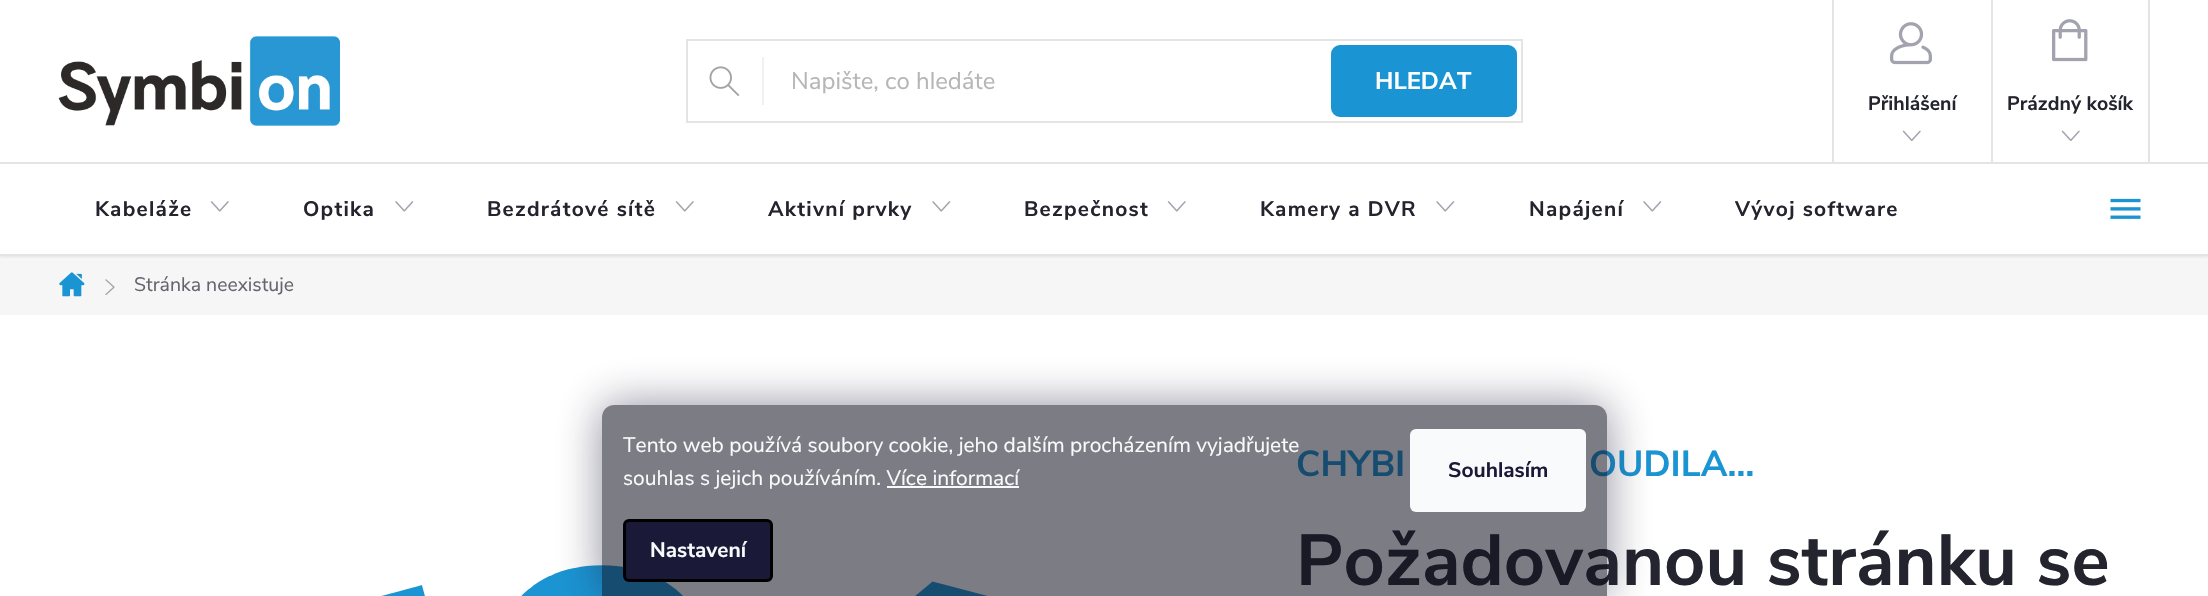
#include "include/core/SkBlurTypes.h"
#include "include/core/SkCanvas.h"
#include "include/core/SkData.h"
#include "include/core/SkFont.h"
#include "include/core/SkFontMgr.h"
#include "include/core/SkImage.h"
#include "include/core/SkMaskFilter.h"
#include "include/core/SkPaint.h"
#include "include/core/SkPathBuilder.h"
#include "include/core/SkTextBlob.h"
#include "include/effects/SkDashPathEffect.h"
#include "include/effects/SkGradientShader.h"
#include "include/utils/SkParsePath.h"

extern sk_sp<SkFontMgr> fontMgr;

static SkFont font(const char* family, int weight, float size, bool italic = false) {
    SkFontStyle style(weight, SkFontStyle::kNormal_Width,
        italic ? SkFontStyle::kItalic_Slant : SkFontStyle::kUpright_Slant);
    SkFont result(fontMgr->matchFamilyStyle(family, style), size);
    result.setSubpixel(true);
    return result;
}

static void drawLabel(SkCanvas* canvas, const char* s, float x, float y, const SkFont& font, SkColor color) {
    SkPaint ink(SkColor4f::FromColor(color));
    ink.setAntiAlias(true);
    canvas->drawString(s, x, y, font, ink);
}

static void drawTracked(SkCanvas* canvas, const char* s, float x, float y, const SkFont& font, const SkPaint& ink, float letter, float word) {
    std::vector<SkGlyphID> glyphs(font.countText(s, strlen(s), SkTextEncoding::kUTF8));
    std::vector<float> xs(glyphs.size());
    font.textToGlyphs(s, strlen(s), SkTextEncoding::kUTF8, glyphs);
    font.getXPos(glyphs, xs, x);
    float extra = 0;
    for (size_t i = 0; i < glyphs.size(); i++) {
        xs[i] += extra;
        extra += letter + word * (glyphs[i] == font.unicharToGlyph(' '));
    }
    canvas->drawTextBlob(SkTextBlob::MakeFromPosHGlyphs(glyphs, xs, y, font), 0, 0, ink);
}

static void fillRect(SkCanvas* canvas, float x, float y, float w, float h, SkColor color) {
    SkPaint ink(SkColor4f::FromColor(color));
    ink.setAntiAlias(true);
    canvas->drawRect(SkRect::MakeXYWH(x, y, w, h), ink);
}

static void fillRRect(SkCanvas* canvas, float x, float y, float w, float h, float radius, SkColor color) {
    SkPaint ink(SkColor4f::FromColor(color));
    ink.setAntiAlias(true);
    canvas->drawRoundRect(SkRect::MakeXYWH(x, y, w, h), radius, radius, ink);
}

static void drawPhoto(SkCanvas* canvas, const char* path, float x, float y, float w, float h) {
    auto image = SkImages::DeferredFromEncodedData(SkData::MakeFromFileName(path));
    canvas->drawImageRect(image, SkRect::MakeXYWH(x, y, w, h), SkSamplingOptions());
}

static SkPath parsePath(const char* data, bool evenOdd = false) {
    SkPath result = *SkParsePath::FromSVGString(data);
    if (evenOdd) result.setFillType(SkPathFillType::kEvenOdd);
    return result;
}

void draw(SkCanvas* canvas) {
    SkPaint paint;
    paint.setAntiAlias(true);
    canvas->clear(0xFFFFFFFF);
    drawPhoto(canvas, "assets/img1.png", 58, 36, 283, 90);
    paint.setStroke(true);
    paint.setStrokeWidth(2);
    paint.setColor(0xFFE4E4E4);
    canvas->drawRect(SkRect::MakeXYWH(687, 40, 835, 82), paint);
    fillRect(canvas, 762, 57, 2, 48, 0xFFF1F1F1);
    drawPhoto(canvas, "assets/img2.png", 709, 66, 31, 31);
    SkFont font1 = font("Nunito Sans", 400, 24);
    drawLabel(canvas, "Napište, co hledáte", 791, 89, font1, 0xFFB6B6B6);
    paint.setStroke(false);
    paint.setColor(0xFF1A94D2);
    canvas->drawRoundRect(SkRect::MakeXYWH(1332, 46, 184, 70), 8, 8, paint);
    paint.setStroke(true);
    canvas->drawRoundRect(SkRect::MakeXYWH(1332, 46, 184, 70), 8, 8, paint);
    SkFont font2 = font("Nunito Sans", 700, 24);
    drawLabel(canvas, "HLEDAT", 1375, 89, font2, 0xFFFFFFFF);
    fillRect(canvas, 1832, 0, 2, 162, 0xFFE4E4E4);
    drawPhoto(canvas, "assets/img3.png", 1890, 22, 42, 43);
    SkFont font3 = font("Nunito Sans", 700, 19.5f);
    drawLabel(canvas, "Přihlášení", 1868, 110, font3, 0xFF24242E);
    drawPhoto(canvas, "assets/img4.png", 1902, 130, 19, 11);
    fillRect(canvas, 2148, 0, 2, 162, 0xFFE4E4E4);
    fillRect(canvas, 1991, 0, 2, 162, 0xFFE4E4E4);
    drawPhoto(canvas, "assets/img5.png", 2052, 19, 36, 43);
    drawLabel(canvas, "Prázdný košík", 2007, 110, font3, 0xFF24242E);
    drawPhoto(canvas, "assets/img4.png", 2061, 130, 19, 11);
    fillRect(canvas, 0, 256, 2208, 59, 0xFFF6F6F6);
    canvas->save();
    canvas->clipRect(SkRect::MakeXYWH(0, 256, 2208, 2));
    paint.setStroke(false);
    paint.setColor(0x0D000000);
    paint.setMaskFilter(SkMaskFilter::MakeBlur(kNormal_SkBlurStyle, 1.5f));
    canvas->drawRect(SkRect::MakeXYWH(0, 165, 2208, 93), paint);
    paint.setMaskFilter(nullptr);
    canvas->restore();
    SkFont font4 = font("Nunito Sans", 700, 21);
    paint.setColor(0xFF24242E);
    drawTracked(canvas, "Kabeláže", 95, 216, font4, paint, 1.25f, 0);
    drawPhoto(canvas, "assets/img6.png", 210, 201, 19, 11);
    drawTracked(canvas, "Optika", 303, 216, font4, paint, 1.25f, 0);
    drawPhoto(canvas, "assets/img7.png", 395, 201, 19, 11);
    drawTracked(canvas, "Bezdrátové sítě", 487, 216, font4, paint, 1.25f, 0);
    drawPhoto(canvas, "assets/img6.png", 675, 201, 19, 11);
    drawTracked(canvas, "Aktivní prvky", 768, 216, font4, paint, 1.25f, 0);
    drawPhoto(canvas, "assets/img7.png", 932, 201, 19, 11);
    drawTracked(canvas, "Bezpečnost", 1024, 216, font4, paint, 1.25f, 0);
    drawPhoto(canvas, "assets/img6.png", 1167, 201, 19, 11);
    drawTracked(canvas, "Kamery a DVR", 1260, 216, font4, paint, 1.25f, 0);
    drawPhoto(canvas, "assets/img7.png", 1436, 201, 19, 11);
    drawTracked(canvas, "Napájení", 1529, 216, font4, paint, 1.25f, 0);
    drawPhoto(canvas, "assets/img7.png", 1643, 201, 19, 11);
    drawTracked(canvas, "Vývoj software", 1735, 216, font4, paint, 1.25f, 0);
    drawPhoto(canvas, "assets/img8.png", 2110, 198, 31, 21);
    fillRect(canvas, 0, 162, 2208, 2, 0xFFE4E4E4);
    fillRect(canvas, 0, 254, 2208, 2, 0xFFE4E4E4);
    drawPhoto(canvas, "assets/img9.png", 59, 272, 26, 25);
    drawPhoto(canvas, "assets/img10.png", 105, 279, 10, 16);
    SkFont font5 = font("Nunito Sans", 400, 19.5f);
    drawLabel(canvas, "Stránka neexistuje", 134, 291, font5, 0xFF656570);
    SkFont font6 = font("Nunito Sans", 700, 36);
    drawLabel(canvas, "CHYBI", 1296, 476, font6, 0xFF1A94D2);
    drawLabel(canvas, "OUDILA…", 1589, 476, font6, 0xFF1A94D2);
    drawPhoto(canvas, "assets/img11.png", 381, 565, 607, 31);
    SkFont font7 = font("Nunito Sans", 700, 72);
    drawLabel(canvas, "Požadovanou stránku se", 1296, 585, font7, 0xFF24242E);
    canvas->save();
    canvas->clipPath(parsePath("M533 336H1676V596H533ZM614 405H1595C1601.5 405 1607 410.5 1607 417V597H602V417C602 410.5 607.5 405 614 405Z", true), true);
    paint.setColor(0x801B1939);
    paint.setMaskFilter(SkMaskFilter::MakeBlur(kNormal_SkBlurStyle, 22.5f));
    canvas->drawRoundRect(SkRect::MakeXYWH(602, 405, 1005, 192), 12, 12, paint);
    paint.setMaskFilter(nullptr);
    canvas->restore();
    paint.setColor(0x8C11111F);
    canvas->drawPath(parsePath("M614 405H1595C1601.5 405 1607 410.5 1607 417V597H602V417C602 410.5 607.5 405 614 405Z"), paint);
    SkFont font8 = font("Nunito Sans", 400, 21);
    drawLabel(canvas, "Tento web používá soubory cookie, jeho dalším procházením vyjadřujete", 623, 452, font8, 0xFFF8FAFB);
    drawLabel(canvas, "souhlas s jejich používáním. Více informací", 623, 485, font8, 0xFFF8FAFB);
    fillRect(canvas, 887, 486, 132, 2, 0xFFF8FAFB);
    paint.setColor(0xFF1A1937);
    canvas->drawRoundRect(SkRect::MakeXYWH(624.5f, 520.5f, 147, 60), 4.5f, 4.5f, paint);
    paint.setStroke(true);
    paint.setStrokeWidth(3);
    paint.setColor(0xFF000000);
    canvas->drawRoundRect(SkRect::MakeXYWH(624.5f, 520.5f, 147, 60), 4.5f, 4.5f, paint);
    drawLabel(canvas, "Nastavení", 650, 557, font4, 0xFFF8FAFB);
    fillRRect(canvas, 1410, 429, 176, 83, 6, 0xFFF8FAFB);
    drawLabel(canvas, "Souhlasím", 1448, 477, font4, 0xFF1A1937);
}
